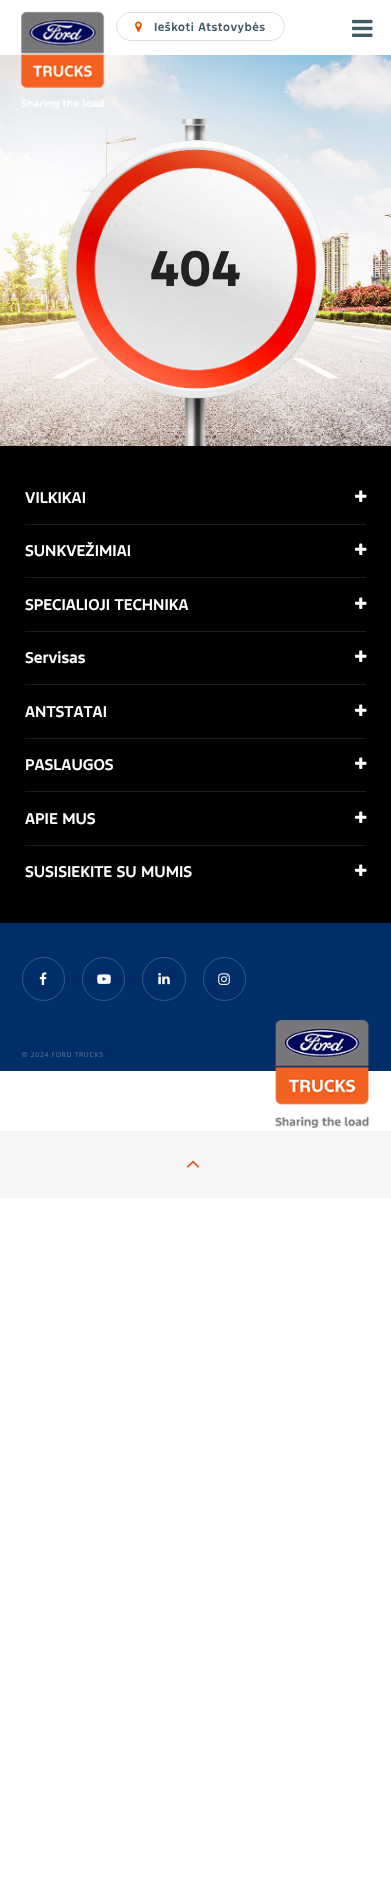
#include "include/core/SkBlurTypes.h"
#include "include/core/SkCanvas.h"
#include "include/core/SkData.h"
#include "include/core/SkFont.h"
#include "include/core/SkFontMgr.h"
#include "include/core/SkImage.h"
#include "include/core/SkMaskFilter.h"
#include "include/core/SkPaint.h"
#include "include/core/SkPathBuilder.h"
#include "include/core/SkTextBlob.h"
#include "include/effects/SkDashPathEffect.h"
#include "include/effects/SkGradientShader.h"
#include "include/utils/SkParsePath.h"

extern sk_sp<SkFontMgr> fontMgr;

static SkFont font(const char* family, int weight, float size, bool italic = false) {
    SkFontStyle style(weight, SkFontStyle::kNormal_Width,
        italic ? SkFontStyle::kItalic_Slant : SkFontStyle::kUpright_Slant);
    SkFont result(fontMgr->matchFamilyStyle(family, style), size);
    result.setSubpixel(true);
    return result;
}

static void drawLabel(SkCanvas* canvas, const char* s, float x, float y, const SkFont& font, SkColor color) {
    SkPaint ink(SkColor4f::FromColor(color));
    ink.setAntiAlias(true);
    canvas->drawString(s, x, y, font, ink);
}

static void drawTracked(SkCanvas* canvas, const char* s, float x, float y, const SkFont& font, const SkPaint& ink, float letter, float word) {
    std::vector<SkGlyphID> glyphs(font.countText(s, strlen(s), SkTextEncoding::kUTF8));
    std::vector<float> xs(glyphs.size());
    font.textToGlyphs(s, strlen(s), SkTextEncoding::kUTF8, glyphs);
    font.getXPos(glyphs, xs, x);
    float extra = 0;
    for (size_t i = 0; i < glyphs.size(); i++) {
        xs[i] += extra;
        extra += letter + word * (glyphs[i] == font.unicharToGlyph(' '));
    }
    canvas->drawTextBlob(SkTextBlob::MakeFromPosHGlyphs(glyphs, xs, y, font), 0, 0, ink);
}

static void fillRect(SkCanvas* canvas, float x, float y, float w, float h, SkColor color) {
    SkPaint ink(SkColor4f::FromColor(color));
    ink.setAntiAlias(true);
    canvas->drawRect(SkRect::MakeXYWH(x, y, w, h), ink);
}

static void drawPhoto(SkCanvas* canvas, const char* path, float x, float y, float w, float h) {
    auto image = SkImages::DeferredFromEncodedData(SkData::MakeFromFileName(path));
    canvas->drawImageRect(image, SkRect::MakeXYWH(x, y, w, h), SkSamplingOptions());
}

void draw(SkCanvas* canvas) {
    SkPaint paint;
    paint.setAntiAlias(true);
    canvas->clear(0xFFFFFFFF);
    drawPhoto(canvas, "assets/img4.png", 0, 55, 391, 391);
    drawPhoto(canvas, "assets/img1.png", 21, 11, 84, 98);
    paint.setStroke(true);
    paint.setStrokeWidth(1);
    paint.setColor(0xFFD9DEE1);
    canvas->drawRoundRect(SkRect::MakeXYWH(116.5f, 12.5f, 168, 28), 14, 14, paint);
    drawPhoto(canvas, "assets/img2.png", 135, 21, 7, 11);
    SkFont font1 = font("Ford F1", 600, 11);
    paint.setStroke(false);
    paint.setColor(0xFF425968);
    drawTracked(canvas, "Ieškoti Atstovybės", 154, 31, font1, paint, 0.5f, 0);
    drawPhoto(canvas, "assets/img3.png", 352, 19, 21, 18);
    drawPhoto(canvas, "assets/img5.png", 67, 118, 258, 328);
    SkFont font2 = font("Ford F1", 700, 47);
    drawLabel(canvas, "404", 150, 286, font2, 0xFF202223);
    fillRect(canvas, 0, 446, 391, 477, 0xFF000000);
    fillRect(canvas, 25, 524, 341, 1, 0xFF1C1C1C);
    SkFont font3 = font("Ford F1", 600, 14.6f);
    drawLabel(canvas, "VILKIKAI", 25, 503, font3, 0xFFFFFFFF);
    drawPhoto(canvas, "assets/img6.png", 355, 490, 12, 12);
    fillRect(canvas, 25, 577, 341, 1, 0xFF1C1C1C);
    drawLabel(canvas, "SUNKVEŽIMIAI", 25, 556, font3, 0xFFFFFFFF);
    drawPhoto(canvas, "assets/img6.png", 355, 543, 12, 12);
    fillRect(canvas, 25, 631, 341, 1, 0xFF1C1C1C);
    drawLabel(canvas, "SPECIALIOJI TECHNIKA", 25, 610, font3, 0xFFFFFFFF);
    drawPhoto(canvas, "assets/img6.png", 355, 597, 12, 12);
    fillRect(canvas, 25, 684, 341, 1, 0xFF1C1C1C);
    drawLabel(canvas, "Servisas", 25, 663, font3, 0xFFFFFFFF);
    drawPhoto(canvas, "assets/img6.png", 355, 650, 12, 12);
    fillRect(canvas, 25, 738, 341, 1, 0xFF1C1C1C);
    drawLabel(canvas, "ANTSTATAI", 25, 717, font3, 0xFFFFFFFF);
    drawPhoto(canvas, "assets/img6.png", 355, 704, 12, 12);
    fillRect(canvas, 25, 791, 341, 1, 0xFF1C1C1C);
    drawLabel(canvas, "PASLAUGOS", 25, 770, font3, 0xFFFFFFFF);
    drawPhoto(canvas, "assets/img6.png", 355, 757, 12, 12);
    fillRect(canvas, 25, 845, 341, 1, 0xFF1C1C1C);
    drawLabel(canvas, "APIE MUS", 25, 824, font3, 0xFFFFFFFF);
    drawPhoto(canvas, "assets/img6.png", 355, 811, 12, 12);
    drawLabel(canvas, "SUSISIEKITE SU MUMIS", 25, 877, font3, 0xFFFFFFFF);
    drawPhoto(canvas, "assets/img6.png", 355, 864, 12, 12);
    fillRect(canvas, 0, 923, 391, 148, 0xFF012E68);
    paint.setStroke(true);
    paint.setColor(0xFF365A88);
    canvas->drawRoundRect(SkRect::MakeXYWH(22.5f, 957.5f, 42, 43), 21, 21, paint);
    drawPhoto(canvas, "assets/img7.png", 39, 972, 8, 13);
    canvas->drawRoundRect(SkRect::MakeXYWH(82.5f, 957.5f, 42, 43), 21, 21, paint);
    drawPhoto(canvas, "assets/img8.png", 97, 974, 14, 10);
    canvas->drawCircle(164, 979, 21.5f, paint);
    drawPhoto(canvas, "assets/img9.png", 158, 973, 12, 12);
    canvas->drawRoundRect(SkRect::MakeXYWH(203.5f, 957.5f, 42, 43), 21, 21, paint);
    drawPhoto(canvas, "assets/img10.png", 218, 973, 12, 12);
    SkFont font4 = font("Open Sans", 400, 6.75f);
    paint.setStroke(false);
    paint.setColor(0xFF57759B);
    drawTracked(canvas, "© 2024 FORD TRUCKS", 22, 1057, font4, paint, 0.7f, 0);
    drawPhoto(canvas, "assets/img11.png", 275, 1020, 94, 108);
    fillRect(canvas, 0, 1131, 391, 67, 0xFFF5F5F6);
    drawPhoto(canvas, "assets/img12.png", 187, 1160, 13, 8);
}
